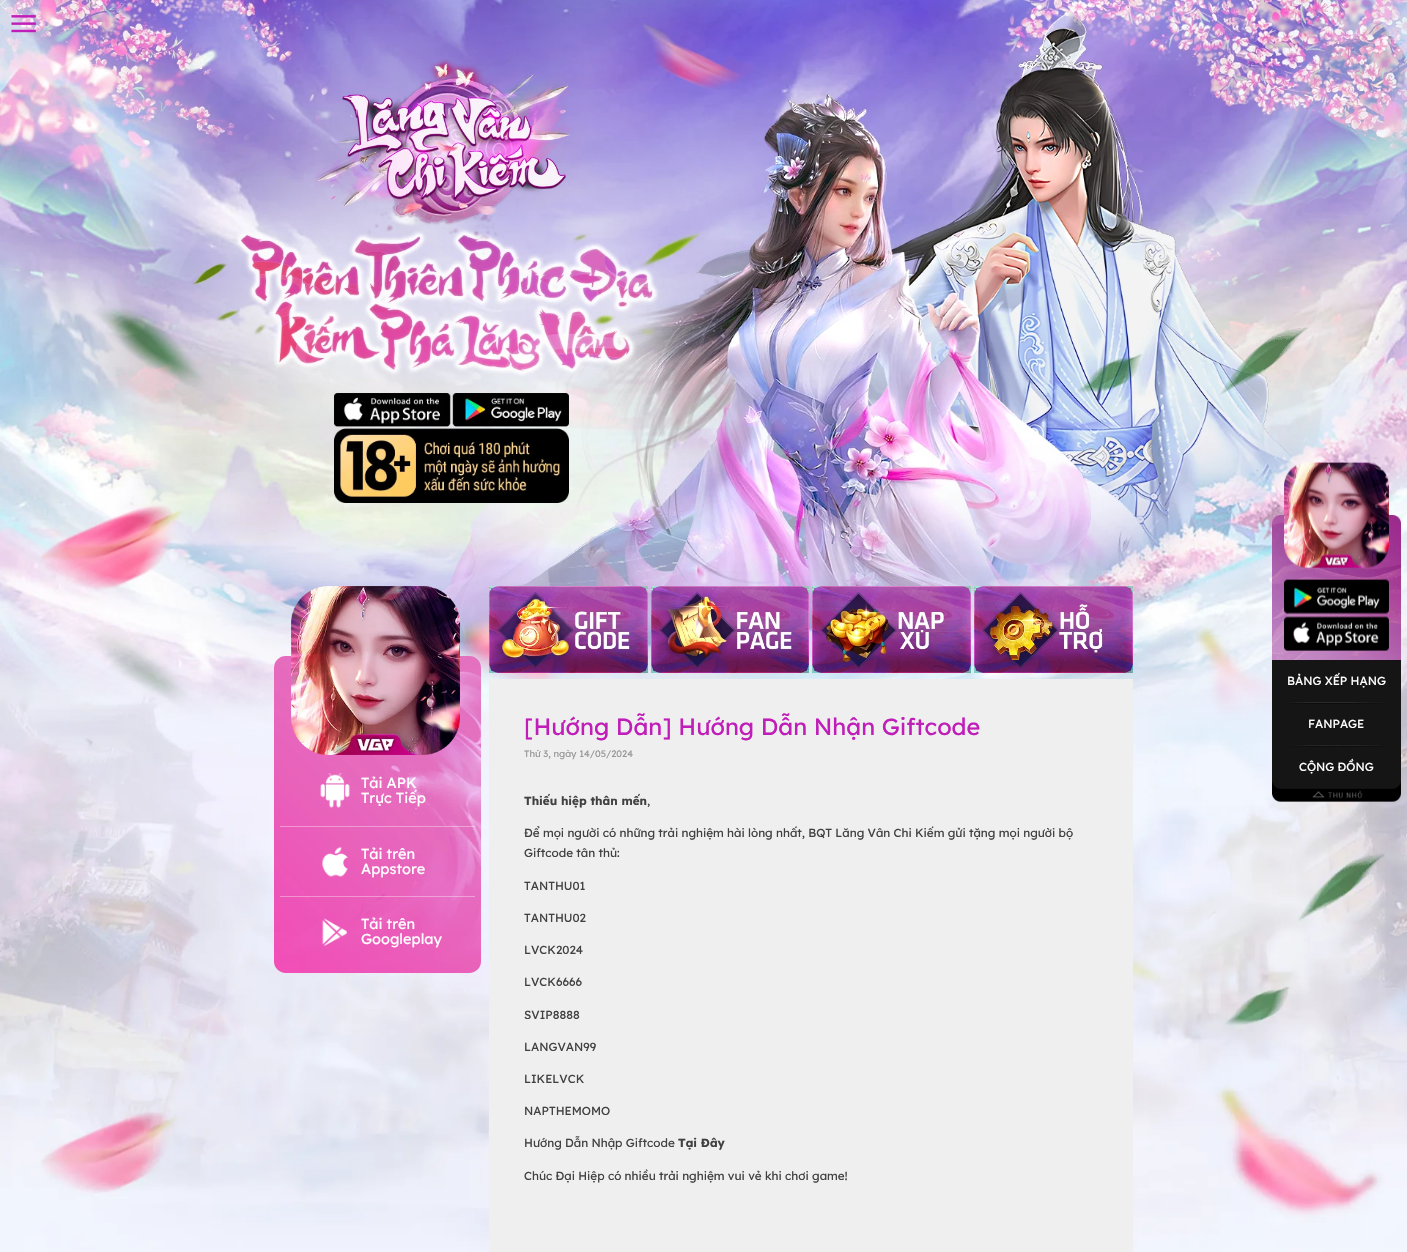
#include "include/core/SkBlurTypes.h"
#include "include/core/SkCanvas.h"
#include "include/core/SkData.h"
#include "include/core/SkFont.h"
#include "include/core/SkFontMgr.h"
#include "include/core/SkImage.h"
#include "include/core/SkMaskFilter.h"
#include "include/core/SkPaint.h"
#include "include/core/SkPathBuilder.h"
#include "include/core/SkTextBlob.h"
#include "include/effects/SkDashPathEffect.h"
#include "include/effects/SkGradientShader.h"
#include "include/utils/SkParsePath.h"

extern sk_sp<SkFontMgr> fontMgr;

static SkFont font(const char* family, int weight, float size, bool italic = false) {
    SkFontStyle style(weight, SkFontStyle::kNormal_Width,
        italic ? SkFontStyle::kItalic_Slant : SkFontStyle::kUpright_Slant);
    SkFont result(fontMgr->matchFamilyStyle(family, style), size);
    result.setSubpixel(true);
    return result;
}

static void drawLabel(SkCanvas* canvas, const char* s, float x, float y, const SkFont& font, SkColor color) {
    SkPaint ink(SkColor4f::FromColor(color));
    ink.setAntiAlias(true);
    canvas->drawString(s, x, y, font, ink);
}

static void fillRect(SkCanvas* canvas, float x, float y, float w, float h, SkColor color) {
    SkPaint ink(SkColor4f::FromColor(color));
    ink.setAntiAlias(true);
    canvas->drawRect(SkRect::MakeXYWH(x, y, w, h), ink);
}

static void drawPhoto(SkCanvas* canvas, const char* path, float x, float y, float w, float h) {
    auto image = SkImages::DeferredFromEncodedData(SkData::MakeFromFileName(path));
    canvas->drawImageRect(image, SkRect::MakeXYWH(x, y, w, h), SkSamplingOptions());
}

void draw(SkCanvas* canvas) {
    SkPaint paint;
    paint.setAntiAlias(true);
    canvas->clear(0xFFFFFFFF);
    drawPhoto(canvas, "assets/img1.png", 0, 468, 1407, 784);
    drawPhoto(canvas, "assets/img2.png", 0, 0, 1407, 767);
    drawPhoto(canvas, "assets/img3.png", 11, 15, 25, 18);
    drawPhoto(canvas, "assets/img4.png", 315, 59, 257, 181);
    drawPhoto(canvas, "assets/img5.png", 334, 393, 235, 110);
    drawPhoto(canvas, "assets/img6.png", 489, 586, 159, 87);
    drawPhoto(canvas, "assets/img7.png", 651, 586, 158, 87);
    drawPhoto(canvas, "assets/img8.png", 812, 586, 159, 87);
    drawPhoto(canvas, "assets/img9.png", 974, 586, 159, 87);
    drawPhoto(canvas, "assets/img11.png", 274, 656, 207, 317);
    drawPhoto(canvas, "assets/img10.png", 291, 586, 169, 169);
    drawPhoto(canvas, "assets/img12.png", 320, 773, 30, 35);
    SkFont font1 = font("Lexend", 400, 14.5f);
    drawLabel(canvas, "Tải APK", 361, 788, font1, 0xFFFFFFFF);
    drawLabel(canvas, "Trực Tiếp", 361, 803, font1, 0xFFFFFFFF);
    fillRect(canvas, 280, 826, 195, 1, 0x5CFFFFFF);
    drawPhoto(canvas, "assets/img13.png", 322, 846, 26, 31);
    drawLabel(canvas, "Tải trên", 361, 859, font1, 0xFFFFFFFF);
    drawLabel(canvas, "Appstore", 361, 874, font1, 0xFFFFFFFF);
    fillRect(canvas, 280, 896, 195, 1, 0x5CFFFFFF);
    drawPhoto(canvas, "assets/img14.png", 322, 918, 25, 28);
    drawLabel(canvas, "Tải trên", 361, 929, font1, 0xFFFFFFFF);
    drawLabel(canvas, "Googleplay", 361, 944, font1, 0xFFFFFFFF);
    fillRect(canvas, 489, 679, 644, 573, 0xFFEFEFEF);
    SkFont font2 = font("Lexend", 400, 23.5f);
    drawLabel(canvas, "[Hướng Dẫn] Hướng Dẫn Nhận Giftcode", 524, 735, font2, 0xFFC01EB8);
    SkFont font3 = font("Lexend", 400, 9.4f);
    drawLabel(canvas, "Thứ 3, ngày 14/05/2024", 524, 757, font3, 0xFF989898);
    SkFont font4 = font("Lexend", 700, 11.7f);
    drawLabel(canvas, "Thiếu hiệp thân mến", 524, 805, font4, 0xFF414141);
    SkFont font5 = font("Lexend", 400, 11.7f);
    drawLabel(canvas, ",", 647, 805, font5, 0xFF414141);
    drawLabel(canvas, "Để mọi người có những trải nghiệm hài lòng nhất, BQT Lăng Vân Chi Kiếm gửi tặng mọi người bộ", 524, 837, font5, 0xFF414141);
    drawLabel(canvas, "Giftcode tân thủ:", 524, 857, font5, 0xFF414141);
    drawLabel(canvas, "TANTHU01", 524, 890, font5, 0xFF414141);
    drawLabel(canvas, "TANTHU02", 524, 922, font5, 0xFF414141);
    drawLabel(canvas, "LVCK2024", 524, 954, font5, 0xFF414141);
    drawLabel(canvas, "LVCK6666", 524, 986, font5, 0xFF414141);
    drawLabel(canvas, "SVIP8888", 524, 1019, font5, 0xFF414141);
    drawLabel(canvas, "LANGVAN99", 524, 1051, font5, 0xFF414141);
    drawLabel(canvas, "LIKELVCK", 524, 1083, font5, 0xFF414141);
    drawLabel(canvas, "NAPTHEMOMO", 524, 1115, font5, 0xFF414141);
    drawLabel(canvas, "Hướng Dẫn Nhập Giftcode", 524, 1147, font5, 0xFF414141);
    drawLabel(canvas, "Tại Đây", 678, 1147, font4, 0xFF414141);
    drawLabel(canvas, "Chúc Đại Hiệp có nhiều trải nghiệm vui vẻ khi chơi game!", 524, 1180, font5, 0xFF414141);
    drawPhoto(canvas, "assets/img15.png", 1272, 515, 129, 287);
    drawPhoto(canvas, "assets/img16.png", 1284, 462, 105, 106);
    drawPhoto(canvas, "assets/img17.png", 1284, 579, 105, 72);
    drawLabel(canvas, "BẢNG XẾP HẠNG", 1287, 685, font5, 0xFFFFFFFF);
    drawLabel(canvas, "FANPAGE", 1308, 728, font5, 0xFFFFFFFF);
    drawLabel(canvas, "CỘNG ĐỒNG", 1299, 771, font5, 0xFFFFFFFF);
}
